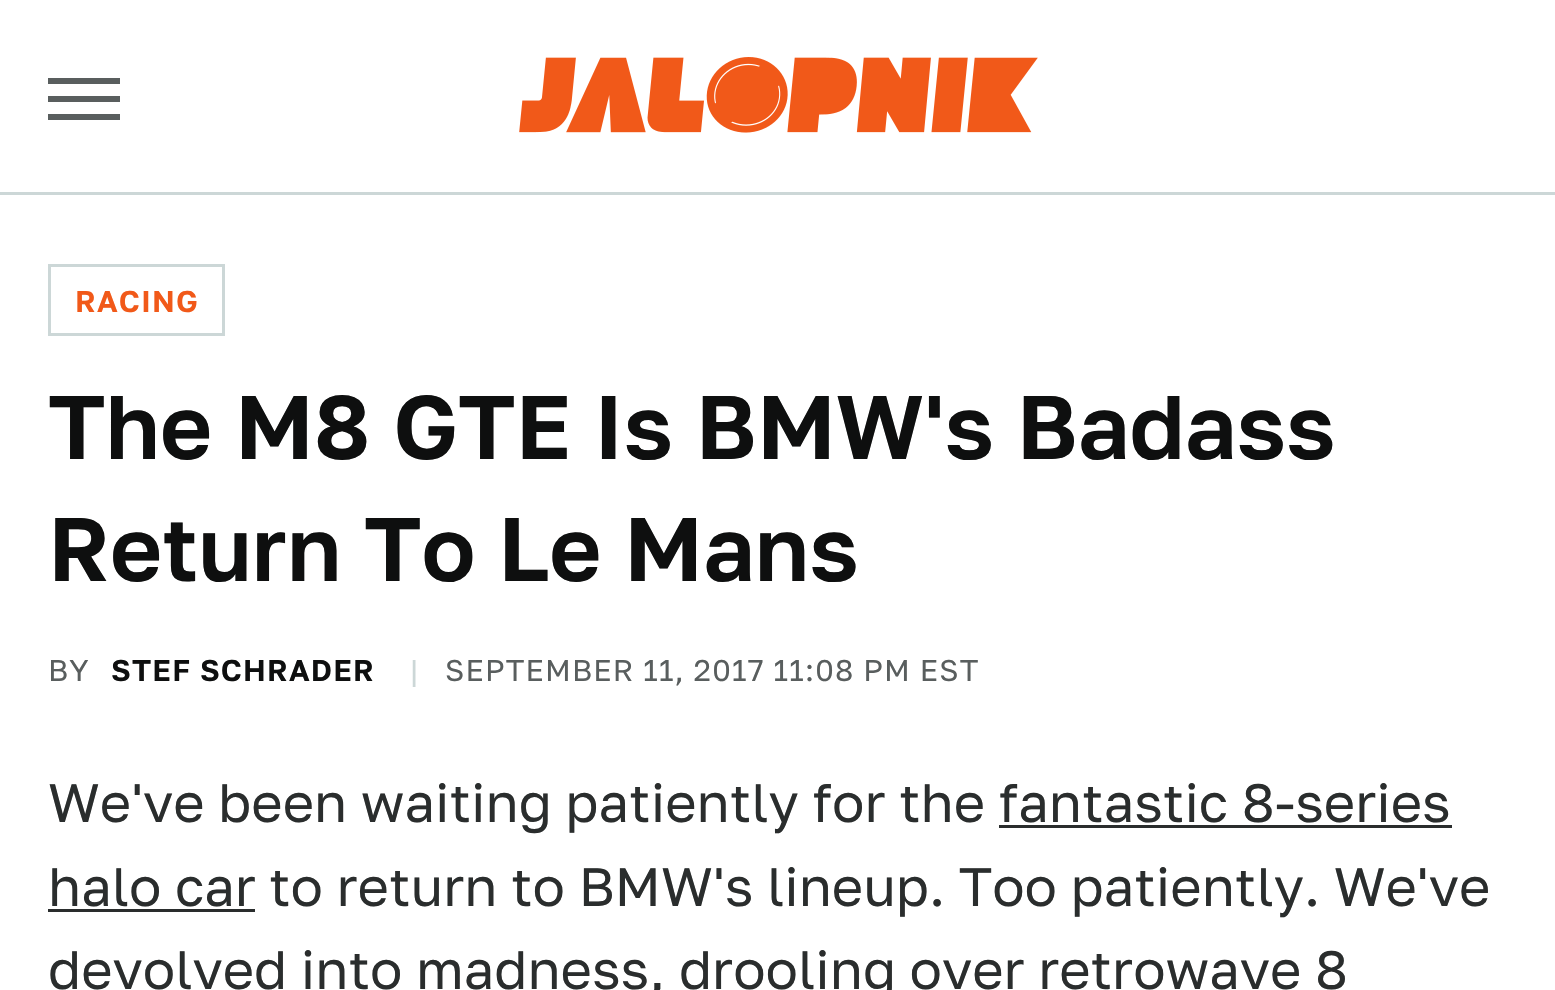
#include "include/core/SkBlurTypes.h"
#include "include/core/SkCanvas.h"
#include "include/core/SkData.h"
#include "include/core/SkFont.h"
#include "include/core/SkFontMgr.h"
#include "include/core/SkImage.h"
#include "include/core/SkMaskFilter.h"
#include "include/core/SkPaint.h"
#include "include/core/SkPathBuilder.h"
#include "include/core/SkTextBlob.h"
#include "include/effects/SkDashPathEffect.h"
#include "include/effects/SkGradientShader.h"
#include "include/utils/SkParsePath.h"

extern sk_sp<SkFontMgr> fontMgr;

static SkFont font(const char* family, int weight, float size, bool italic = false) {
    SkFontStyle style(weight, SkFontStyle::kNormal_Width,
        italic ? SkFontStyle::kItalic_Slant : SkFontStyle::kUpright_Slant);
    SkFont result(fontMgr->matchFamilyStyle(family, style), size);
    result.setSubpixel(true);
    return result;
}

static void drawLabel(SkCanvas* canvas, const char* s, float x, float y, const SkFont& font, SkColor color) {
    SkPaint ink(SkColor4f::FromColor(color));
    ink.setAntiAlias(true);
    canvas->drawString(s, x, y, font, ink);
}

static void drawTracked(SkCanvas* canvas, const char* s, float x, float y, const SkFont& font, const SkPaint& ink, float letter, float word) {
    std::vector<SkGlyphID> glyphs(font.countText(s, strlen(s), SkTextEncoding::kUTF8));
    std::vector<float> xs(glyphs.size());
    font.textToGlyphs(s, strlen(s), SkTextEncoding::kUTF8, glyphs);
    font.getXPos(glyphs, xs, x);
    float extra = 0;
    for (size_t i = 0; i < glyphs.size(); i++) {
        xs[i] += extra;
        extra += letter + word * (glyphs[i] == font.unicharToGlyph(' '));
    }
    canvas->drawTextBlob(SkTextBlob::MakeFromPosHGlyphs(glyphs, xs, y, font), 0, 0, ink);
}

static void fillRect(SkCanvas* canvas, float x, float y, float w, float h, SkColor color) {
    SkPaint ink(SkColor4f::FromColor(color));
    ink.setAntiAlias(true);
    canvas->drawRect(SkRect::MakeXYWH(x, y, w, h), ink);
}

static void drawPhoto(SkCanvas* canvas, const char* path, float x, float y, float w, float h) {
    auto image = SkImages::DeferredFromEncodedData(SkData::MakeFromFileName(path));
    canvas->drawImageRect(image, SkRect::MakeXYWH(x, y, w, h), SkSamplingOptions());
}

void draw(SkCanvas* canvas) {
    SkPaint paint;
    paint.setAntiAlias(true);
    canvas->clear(0xFFFFFFFF);
    fillRect(canvas, 0, 192, 1555, 3, 0xFFCCD7D7);
    fillRect(canvas, 48, 78, 72, 6, 0xFF595E5E);
    fillRect(canvas, 48, 96, 72, 6, 0xFF595E5E);
    fillRect(canvas, 48, 114, 72, 6, 0xFF595E5E);
    drawPhoto(canvas, "assets/img1.png", 519, 57, 519, 76);
    paint.setStroke(true);
    paint.setStrokeWidth(3);
    paint.setColor(0xFFCCD7D7);
    canvas->drawRect(SkRect::MakeXYWH(49.5f, 265.5f, 174, 69), paint);
    SkFont font1 = font("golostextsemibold", 600, 30);
    paint.setStroke(false);
    paint.setColor(0xFFF15919);
    drawTracked(canvas, "RACING", 75, 312, font1, paint, 1.2f, 0);
    SkFont font2 = font("golostextsemibold", 600, 90);
    drawLabel(canvas, "The M8 GTE Is BMW's Badass", 48, 459, font2, 0xFF0E0F0F);
    drawLabel(canvas, "Return To Le Mans", 48, 581, font2, 0xFF0E0F0F);
    SkFont font3 = font("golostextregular", 400, 30);
    paint.setColor(0xFF595E5E);
    drawTracked(canvas, "BY", 48, 681, font3, paint, 1.2f, 0);
    paint.setColor(0xFF0E0F0F);
    drawTracked(canvas, "STEF SCHRADER", 111, 681, font1, paint, 1.2f, 0);
    paint.setColor(0xFFCCD7D7);
    drawTracked(canvas, "|", 409, 681, font3, paint, 1.2f, 0);
    paint.setColor(0xFF595E5E);
    drawTracked(canvas, "SEPTEMBER 11, 2017 11:08 PM EST", 445, 681, font3, paint, 1.2f, 0);
    SkFont font4 = font("golostextregular", 400, 54);
    drawLabel(canvas, "We've been waiting patiently for the fantastic 8-series", 48, 822, font4, 0xFF2A2D2D);
    drawLabel(canvas, "halo car", 48, 906, font4, 0xFF2A2D2D);
    fillRect(canvas, 999, 825, 453, 3, 0xFF2A2D2D);
    fillRect(canvas, 48, 909, 207, 3, 0xFF2A2D2D);
    drawLabel(canvas, "to return to BMW's lineup. Too patiently. We've", 269, 906, font4, 0xFF2A2D2D);
    drawLabel(canvas, "devolved into madness, drooling over retrowave 8", 48, 989, font4, 0xFF2A2D2D);
}
